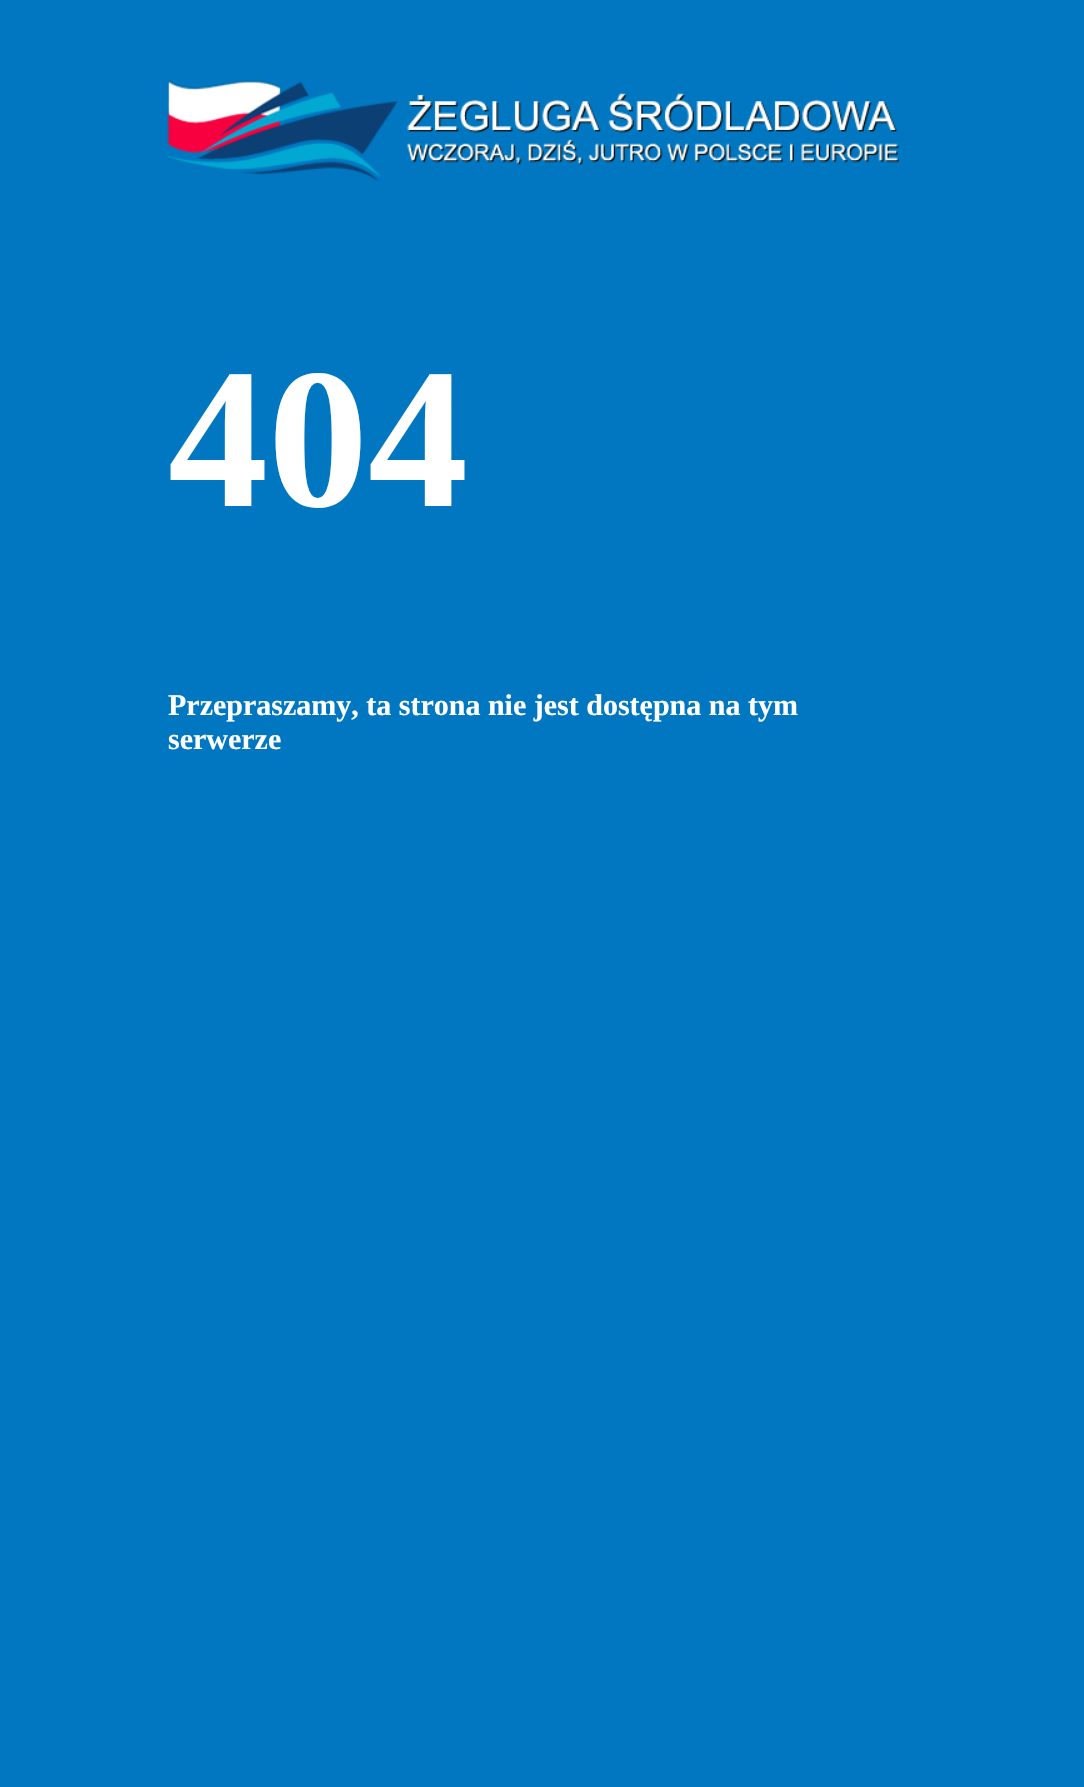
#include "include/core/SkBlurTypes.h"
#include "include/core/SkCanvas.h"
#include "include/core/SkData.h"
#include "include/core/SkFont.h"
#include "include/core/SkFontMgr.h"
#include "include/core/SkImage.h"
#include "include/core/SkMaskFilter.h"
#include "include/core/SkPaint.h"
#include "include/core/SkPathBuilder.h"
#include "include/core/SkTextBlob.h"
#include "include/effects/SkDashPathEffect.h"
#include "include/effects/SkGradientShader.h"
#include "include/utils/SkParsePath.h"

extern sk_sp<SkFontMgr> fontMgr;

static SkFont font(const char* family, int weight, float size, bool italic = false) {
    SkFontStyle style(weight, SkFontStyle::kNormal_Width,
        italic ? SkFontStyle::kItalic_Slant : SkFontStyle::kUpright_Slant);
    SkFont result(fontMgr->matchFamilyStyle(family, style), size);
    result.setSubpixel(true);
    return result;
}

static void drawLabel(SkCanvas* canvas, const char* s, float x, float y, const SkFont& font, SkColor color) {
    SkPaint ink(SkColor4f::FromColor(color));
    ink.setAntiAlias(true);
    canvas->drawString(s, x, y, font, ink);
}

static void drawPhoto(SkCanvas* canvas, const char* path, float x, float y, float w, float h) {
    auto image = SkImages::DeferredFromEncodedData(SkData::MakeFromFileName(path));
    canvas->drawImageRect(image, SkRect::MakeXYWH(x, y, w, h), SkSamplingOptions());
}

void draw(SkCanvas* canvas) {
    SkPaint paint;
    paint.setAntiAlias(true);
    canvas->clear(0xFF0077C0);
    drawPhoto(canvas, "assets/img1.png", 167, 80, 732, 101);
    SkFont font1 = font("Liberation Serif", 700, 200);
    drawLabel(canvas, "404", 168, 506, font1, 0xFFFFFFFF);
    SkFont font2 = font("Liberation Serif", 700, 30);
    drawLabel(canvas, "Przepraszamy, ta strona nie jest dostępna na tym", 168, 715, font2, 0xFFFFFFFF);
    drawLabel(canvas, "serwerze", 168, 749, font2, 0xFFFFFFFF);
}
